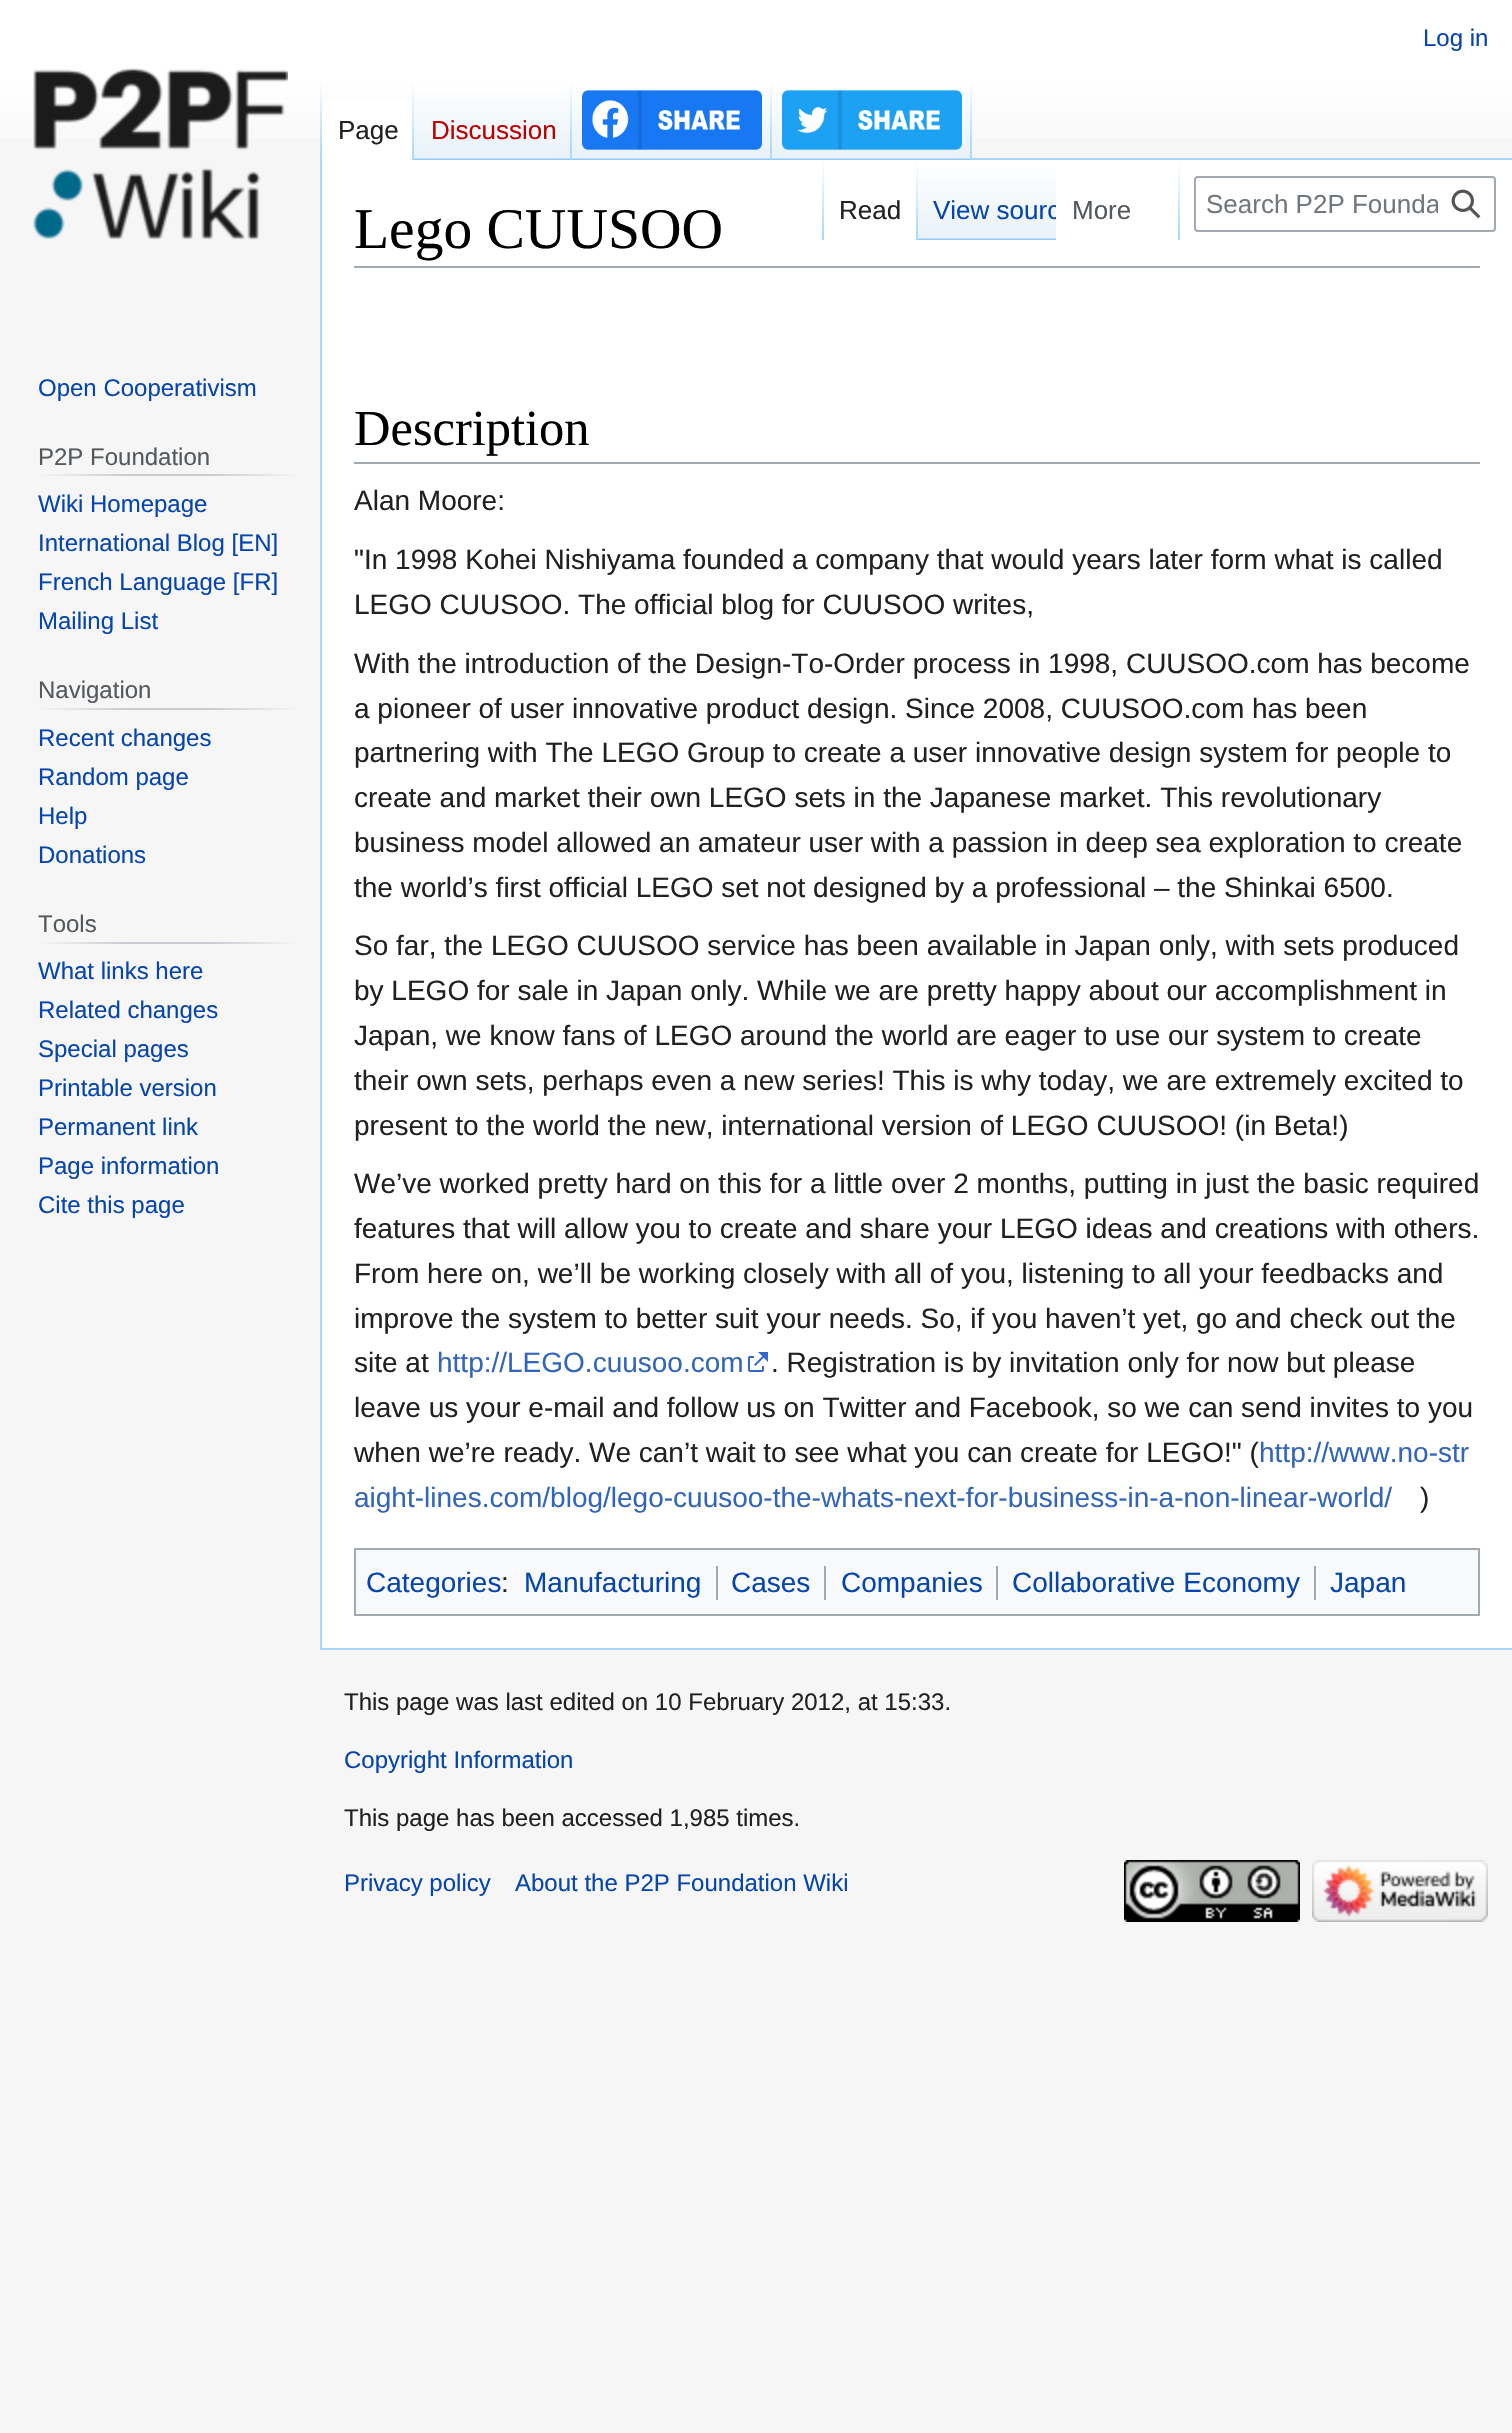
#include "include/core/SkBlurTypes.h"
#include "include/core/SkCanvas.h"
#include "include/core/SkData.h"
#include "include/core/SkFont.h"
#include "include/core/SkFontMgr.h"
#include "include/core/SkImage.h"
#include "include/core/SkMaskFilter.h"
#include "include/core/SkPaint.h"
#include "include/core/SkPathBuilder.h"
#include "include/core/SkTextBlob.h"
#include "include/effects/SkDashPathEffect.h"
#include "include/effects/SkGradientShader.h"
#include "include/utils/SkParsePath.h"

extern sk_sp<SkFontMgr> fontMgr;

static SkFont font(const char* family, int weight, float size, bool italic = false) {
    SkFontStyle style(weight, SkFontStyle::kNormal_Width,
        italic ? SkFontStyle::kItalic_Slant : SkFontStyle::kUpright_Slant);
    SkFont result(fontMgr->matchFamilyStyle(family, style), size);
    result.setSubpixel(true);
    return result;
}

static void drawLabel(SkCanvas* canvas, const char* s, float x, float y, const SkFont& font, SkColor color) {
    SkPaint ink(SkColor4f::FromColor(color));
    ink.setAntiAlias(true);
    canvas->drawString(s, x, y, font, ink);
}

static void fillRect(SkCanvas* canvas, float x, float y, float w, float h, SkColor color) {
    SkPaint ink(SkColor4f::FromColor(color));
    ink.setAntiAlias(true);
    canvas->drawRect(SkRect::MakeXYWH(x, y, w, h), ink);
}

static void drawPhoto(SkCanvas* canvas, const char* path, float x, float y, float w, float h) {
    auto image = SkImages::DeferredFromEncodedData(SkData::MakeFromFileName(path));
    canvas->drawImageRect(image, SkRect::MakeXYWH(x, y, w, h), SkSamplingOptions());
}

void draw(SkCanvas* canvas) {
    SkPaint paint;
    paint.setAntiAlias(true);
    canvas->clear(0xFFF6F6F6);
    {
        const SkColor colors[] = {0xFFFFFFFF, 0xFFF6F6F6};
        const float stops[] = {0.5f, 1};
        const SkPoint ends[] = {{756, 0}, {756, 160}};
        paint.setShader(SkGradientShader::MakeLinear(ends, colors, stops, 2, SkTileMode::kClamp));
        paint.setAlpha(255);
    }
    canvas->drawRect(SkRect::MakeXYWH(0, 0, 1512, 138), paint);
    SkFont font1 = font("Liberation Sans", 400, 24);
    drawLabel(canvas, "Log in", 1423, 46, font1, 0xFF0645AD);
    fillRect(canvas, 320, 1648, 1192, 2, 0xFFA7D7F9);
    fillRect(canvas, 320, 158, 2, 1492, 0xFFA7D7F9);
    {
        const SkColor colors[] = {0x00A7D7F9, 0xFFA7D7F9};
        const float stops[] = {0, 1};
        const SkPoint ends[] = {{321, 80}, {321, 160}};
        paint.setShader(SkGradientShader::MakeLinear(ends, colors, stops, 2, SkTileMode::kClamp));
        paint.setAlpha(255);
    }
    canvas->drawRect(SkRect::MakeXYWH(320, 80, 2, 80), paint);
    fillRect(canvas, 322, 102, 90, 58, 0xFFFFFFFF);
    {
        const SkColor colors[] = {0xFFFFFFFF, 0xFFA7D7F9};
        const float stops[] = {0, 1};
        const SkPoint ends[] = {{413, 80}, {413, 160}};
        paint.setShader(SkGradientShader::MakeLinear(ends, colors, stops, 2, SkTileMode::kClamp));
        paint.setAlpha(255);
    }
    canvas->drawRect(SkRect::MakeXYWH(412, 80, 2, 80), paint);
    SkFont font2 = font("Liberation Sans", 400, 26);
    drawLabel(canvas, "Page", 338, 139, font2, 0xFF202122);
    {
        const SkColor colors[] = {0xFF77C1F6, 0xFFE8F2F8, 0xFFFFFFFF};
        const float stops[] = {0, 0.03f, 1};
        const SkPoint ends[] = {{493, 160}, {493, 80}};
        paint.setShader(SkGradientShader::MakeLinear(ends, colors, stops, 3, SkTileMode::kClamp));
        paint.setAlpha(255);
    }
    canvas->drawRect(SkRect::MakeXYWH(414, 92, 158, 68), paint);
    {
        const SkColor colors[] = {0x00A7D7F9, 0xFFA7D7F9};
        const float stops[] = {0, 1};
        const SkPoint ends[] = {{571, 80}, {571, 160}};
        paint.setShader(SkGradientShader::MakeLinear(ends, colors, stops, 2, SkTileMode::kClamp));
        paint.setAlpha(255);
    }
    canvas->drawRect(SkRect::MakeXYWH(570, 80, 2, 80), paint);
    drawLabel(canvas, "Discussion", 431, 139, font2, 0xFFBA0000);
    {
        const SkColor colors[] = {0xFF77C1F6, 0xFFE8F2F8, 0xFFFFFFFF};
        const float stops[] = {0, 0.03f, 1};
        const SkPoint ends[] = {{672, 160}, {672, 80}};
        paint.setShader(SkGradientShader::MakeLinear(ends, colors, stops, 3, SkTileMode::kClamp));
        paint.setAlpha(255);
    }
    canvas->drawRect(SkRect::MakeXYWH(572, 92, 200, 68), paint);
    {
        const SkColor colors[] = {0x00A7D7F9, 0xFFA7D7F9};
        const float stops[] = {0, 1};
        const SkPoint ends[] = {{771, 80}, {771, 160}};
        paint.setShader(SkGradientShader::MakeLinear(ends, colors, stops, 2, SkTileMode::kClamp));
        paint.setAlpha(255);
    }
    canvas->drawRect(SkRect::MakeXYWH(770, 80, 2, 80), paint);
    drawPhoto(canvas, "assets/img1.png", 582, 90, 180, 60);
    {
        const SkColor colors[] = {0xFF77C1F6, 0xFFE8F2F8, 0xFFFFFFFF};
        const float stops[] = {0, 0.03f, 1};
        const SkPoint ends[] = {{872, 160}, {872, 80}};
        paint.setShader(SkGradientShader::MakeLinear(ends, colors, stops, 3, SkTileMode::kClamp));
        paint.setAlpha(255);
    }
    canvas->drawRect(SkRect::MakeXYWH(772, 92, 200, 68), paint);
    {
        const SkColor colors[] = {0x00A7D7F9, 0xFFA7D7F9};
        const float stops[] = {0, 1};
        const SkPoint ends[] = {{971, 80}, {971, 160}};
        paint.setShader(SkGradientShader::MakeLinear(ends, colors, stops, 2, SkTileMode::kClamp));
        paint.setAlpha(255);
    }
    canvas->drawRect(SkRect::MakeXYWH(970, 80, 2, 80), paint);
    drawPhoto(canvas, "assets/img2.png", 782, 90, 180, 60);
    fillRect(canvas, 322, 160, 1190, 1488, 0xFFFFFFFF);
    {
        const SkColor colors[] = {0xFFFFFFFF, 0xFFA7D7F9};
        const float stops[] = {0, 1};
        const SkPoint ends[] = {{823, 160}, {823, 240}};
        paint.setShader(SkGradientShader::MakeLinear(ends, colors, stops, 2, SkTileMode::kClamp));
        paint.setAlpha(255);
    }
    canvas->drawRect(SkRect::MakeXYWH(822, 160, 2, 80), paint);
    {
        const SkColor colors[] = {0xFFFFFFFF, 0xFFA7D7F9};
        const float stops[] = {0, 1};
        const SkPoint ends[] = {{917, 160}, {917, 240}};
        paint.setShader(SkGradientShader::MakeLinear(ends, colors, stops, 2, SkTileMode::kClamp));
        paint.setAlpha(255);
    }
    canvas->drawRect(SkRect::MakeXYWH(916, 160, 2, 80), paint);
    drawLabel(canvas, "Read", 839, 219, font2, 0xFF202122);
    {
        const SkColor colors[] = {0xFF77C1F6, 0xFFE8F2F8, 0xFFFFFFFF};
        const float stops[] = {0, 0.03f, 1};
        const SkPoint ends[] = {{987, 240}, {987, 160}};
        paint.setShader(SkGradientShader::MakeLinear(ends, colors, stops, 3, SkTileMode::kClamp));
        paint.setAlpha(255);
    }
    canvas->drawRect(SkRect::MakeXYWH(918, 168, 138, 72), paint);
    canvas->save();
    canvas->clipRect(SkRect::MakeXYWH(918, 160, 138, 80));
    drawLabel(canvas, "View sourc", 933, 219, font2, 0xFF0645AD);
    canvas->restore();
    {
        const SkColor colors[] = {0xFFFFFFFF, 0xFFA7D7F9};
        const float stops[] = {0, 1};
        const SkPoint ends[] = {{1179, 160}, {1179, 240}};
        paint.setShader(SkGradientShader::MakeLinear(ends, colors, stops, 2, SkTileMode::kClamp));
        paint.setAlpha(255);
    }
    canvas->drawRect(SkRect::MakeXYWH(1178, 160, 2, 80), paint);
    drawLabel(canvas, "More", 1072, 219, font2, 0xFF54595D);
    paint.setStroke(true);
    paint.setStrokeWidth(2);
    paint.setShader(nullptr);
    paint.setColor(0xFFA2A9B1);
    canvas->drawRoundRect(SkRect::MakeXYWH(1195, 177, 300, 54), 3, 3, paint);
    canvas->save();
    canvas->clipRect(SkRect::MakeXYWH(1206, 190, 232, 30));
    drawLabel(canvas, "Search P2P Founda", 1206, 213, font2, 0xFF72777D);
    canvas->restore();
    drawPhoto(canvas, "assets/img3.png", 1451, 189, 30, 30);
    drawPhoto(canvas, "assets/img4.png", 33, 67, 255, 173);
    drawLabel(canvas, "Open Cooperativism", 38, 396, font1, 0xFF0645AD);
    paint.setStroke(false);
    {
        const SkColor colors[] = {0xFFF6F6F6, 0xFFC8CCD1, 0xFFC8CCD1, 0xFFF6F6F6};
        const float stops[] = {0, 0.33f, 0.66f, 1};
        const SkPoint ends[] = {{38, 475}, {300, 475}};
        paint.setShader(SkGradientShader::MakeLinear(ends, colors, stops, 4, SkTileMode::kClamp));
        paint.setAlpha(255);
    }
    canvas->drawRect(SkRect::MakeXYWH(38, 474, 262, 2), paint);
    drawLabel(canvas, "P2P Foundation", 38, 465, font1, 0xFF54595D);
    drawLabel(canvas, "Wiki Homepage", 38, 512, font1, 0xFF0645AD);
    drawLabel(canvas, "International Blog [EN]", 38, 551, font1, 0xFF0645AD);
    drawLabel(canvas, "French Language [FR]", 38, 590, font1, 0xFF0645AD);
    drawLabel(canvas, "Mailing List", 38, 629, font1, 0xFF0645AD);
    {
        const SkColor colors[] = {0xFFF6F6F6, 0xFFC8CCD1, 0xFFC8CCD1, 0xFFF6F6F6};
        const float stops[] = {0, 0.33f, 0.66f, 1};
        const SkPoint ends[] = {{38, 709}, {300, 709}};
        paint.setShader(SkGradientShader::MakeLinear(ends, colors, stops, 4, SkTileMode::kClamp));
        paint.setAlpha(255);
    }
    canvas->drawRect(SkRect::MakeXYWH(38, 708, 262, 2), paint);
    drawLabel(canvas, "Navigation", 38, 698, font1, 0xFF54595D);
    drawLabel(canvas, "Recent changes", 38, 746, font1, 0xFF0645AD);
    drawLabel(canvas, "Random page", 38, 785, font1, 0xFF0645AD);
    drawLabel(canvas, "Help", 38, 824, font1, 0xFF0645AD);
    drawLabel(canvas, "Donations", 38, 863, font1, 0xFF0645AD);
    {
        const SkColor colors[] = {0xFFF6F6F6, 0xFFC8CCD1, 0xFFC8CCD1, 0xFFF6F6F6};
        const float stops[] = {0, 0.33f, 0.66f, 1};
        const SkPoint ends[] = {{38, 943}, {300, 943}};
        paint.setShader(SkGradientShader::MakeLinear(ends, colors, stops, 4, SkTileMode::kClamp));
        paint.setAlpha(255);
    }
    canvas->drawRect(SkRect::MakeXYWH(38, 942, 262, 2), paint);
    drawLabel(canvas, "Tools", 38, 932, font1, 0xFF54595D);
    drawLabel(canvas, "What links here", 38, 979, font1, 0xFF0645AD);
    drawLabel(canvas, "Related changes", 38, 1018, font1, 0xFF0645AD);
    drawLabel(canvas, "Special pages", 38, 1057, font1, 0xFF0645AD);
    drawLabel(canvas, "Printable version", 38, 1096, font1, 0xFF0645AD);
    drawLabel(canvas, "Permanent link", 38, 1135, font1, 0xFF0645AD);
    drawLabel(canvas, "Page information", 38, 1174, font1, 0xFF0645AD);
    drawLabel(canvas, "Cite this page", 38, 1213, font1, 0xFF0645AD);
    fillRect(canvas, 972, 158, 540, 2, 0xFFA7D7F9);
    fillRect(canvas, 354, 266, 1126, 2, 0xFFA2A9B1);
    SkFont font3 = font("Liberation Serif", 400, 57.5f);
    drawLabel(canvas, "Lego CUUSOO", 354, 248, font3, 0xFF000000);
    fillRect(canvas, 354, 462, 1126, 2, 0xFFA2A9B1);
    SkFont font4 = font("Liberation Serif", 400, 50.5f);
    drawLabel(canvas, "Description", 354, 445, font4, 0xFF000000);
    SkFont font5 = font("Liberation Sans", 400, 28);
    drawLabel(canvas, "Alan Moore:", 354, 510, font5, 0xFF202122);
    drawLabel(canvas, "\"In 1998 Kohei Nishiyama founded a company that would years later form what is called", 354, 569, font5, 0xFF202122);
    drawLabel(canvas, "LEGO CUUSOO. The official blog for CUUSOO writes,", 354, 614, font5, 0xFF202122);
    drawLabel(canvas, "With the introduction of the Design-To-Order process in 1998, CUUSOO.com has become", 354, 673, font5, 0xFF202122);
    drawLabel(canvas, "a pioneer of user innovative product design. Since 2008, CUUSOO.com has been", 354, 718, font5, 0xFF202122);
    drawLabel(canvas, "partnering with The LEGO Group to create a user innovative design system for people to", 354, 762, font5, 0xFF202122);
    drawLabel(canvas, "create and market their own LEGO sets in the Japanese market. This revolutionary", 354, 807, font5, 0xFF202122);
    drawLabel(canvas, "business model allowed an amateur user with a passion in deep sea exploration to create", 354, 852, font5, 0xFF202122);
    drawLabel(canvas, "the world’s first official LEGO set not designed by a professional – the Shinkai 6500.", 354, 897, font5, 0xFF202122);
    drawLabel(canvas, "So far, the LEGO CUUSOO service has been available in Japan only, with sets produced", 354, 955, font5, 0xFF202122);
    drawLabel(canvas, "by LEGO for sale in Japan only. While we are pretty happy about our accomplishment in", 354, 1000, font5, 0xFF202122);
    drawLabel(canvas, "Japan, we know fans of LEGO around the world are eager to use our system to create", 354, 1045, font5, 0xFF202122);
    drawLabel(canvas, "their own sets, perhaps even a new series! This is why today, we are extremely excited to", 354, 1090, font5, 0xFF202122);
    drawLabel(canvas, "present to the world the new, international version of LEGO CUUSOO! (in Beta!)", 354, 1135, font5, 0xFF202122);
    drawLabel(canvas, "We’ve worked pretty hard on this for a little over 2 months, putting in just the basic required", 354, 1193, font5, 0xFF202122);
    drawLabel(canvas, "features that will allow you to create and share your LEGO ideas and creations with others.", 354, 1238, font5, 0xFF202122);
    drawLabel(canvas, "From here on, we’ll be working closely with all of you, listening to all your feedbacks and", 354, 1283, font5, 0xFF202122);
    drawLabel(canvas, "improve the system to better suit your needs. So, if you haven’t yet, go and check out the", 354, 1328, font5, 0xFF202122);
    drawLabel(canvas, "site at", 354, 1372, font5, 0xFF202122);
    drawLabel(canvas, "http://LEGO.cuusoo.com", 437, 1372, font5, 0xFF3366BB);
    drawPhoto(canvas, "assets/img5.png", 748, 1352, 20, 20);
    drawLabel(canvas, ". Registration is by invitation only for now but please", 771, 1372, font5, 0xFF202122);
    drawLabel(canvas, "leave us your e-mail and follow us on Twitter and Facebook, so we can send invites to you", 354, 1417, font5, 0xFF202122);
    drawLabel(canvas, "when we’re ready. We can’t wait to see what you can create for LEGO!\" (", 354, 1462, font5, 0xFF202122);
    drawLabel(canvas, "http://www.no-str", 1259, 1462, font5, 0xFF3366BB);
    drawLabel(canvas, "aight-lines.com/blog/lego-cuusoo-the-whats-next-for-business-in-a-non-linear-world/", 354, 1507, font5, 0xFF3366BB);
    drawLabel(canvas, ")", 1420, 1507, font5, 0xFF202122);
    paint.setShader(nullptr);
    paint.setColor(0xFFF8F9FA);
    canvas->drawRect(SkRect::MakeXYWH(355, 1549, 1124, 66), paint);
    paint.setStroke(true);
    paint.setColor(0xFFA2A9B1);
    canvas->drawRect(SkRect::MakeXYWH(355, 1549, 1124, 66), paint);
    drawLabel(canvas, "Categories", 366, 1592, font5, 0xFF0645AD);
    drawLabel(canvas, ":", 501, 1592, font5, 0xFF202122);
    drawLabel(canvas, "Manufacturing", 524, 1592, font5, 0xFF0645AD);
    fillRect(canvas, 716, 1566, 2, 34, 0xFFA2A9B1);
    drawLabel(canvas, "Cases", 731, 1592, font5, 0xFF0645AD);
    fillRect(canvas, 824, 1566, 2, 34, 0xFFA2A9B1);
    drawLabel(canvas, "Companies", 841, 1592, font5, 0xFF0645AD);
    fillRect(canvas, 996, 1566, 2, 34, 0xFFA2A9B1);
    drawLabel(canvas, "Collaborative Economy", 1012, 1592, font5, 0xFF0645AD);
    fillRect(canvas, 1314, 1566, 2, 34, 0xFFA2A9B1);
    drawLabel(canvas, "Japan", 1330, 1592, font5, 0xFF0645AD);
    drawLabel(canvas, "This page was last edited on 10 February 2012, at 15:33.", 344, 1710, font1, 0xFF202122);
    drawLabel(canvas, "Copyright Information", 344, 1768, font1, 0xFF0645AD);
    drawLabel(canvas, "This page has been accessed 1,985 times.", 344, 1826, font1, 0xFF202122);
    drawLabel(canvas, "Privacy policy", 344, 1891, font1, 0xFF0645AD);
    drawLabel(canvas, "About the P2P Foundation Wiki", 515, 1891, font1, 0xFF0645AD);
    drawPhoto(canvas, "assets/img6.png", 1124, 1860, 176, 62);
    drawPhoto(canvas, "assets/img7.png", 1312, 1860, 176, 62);
}
